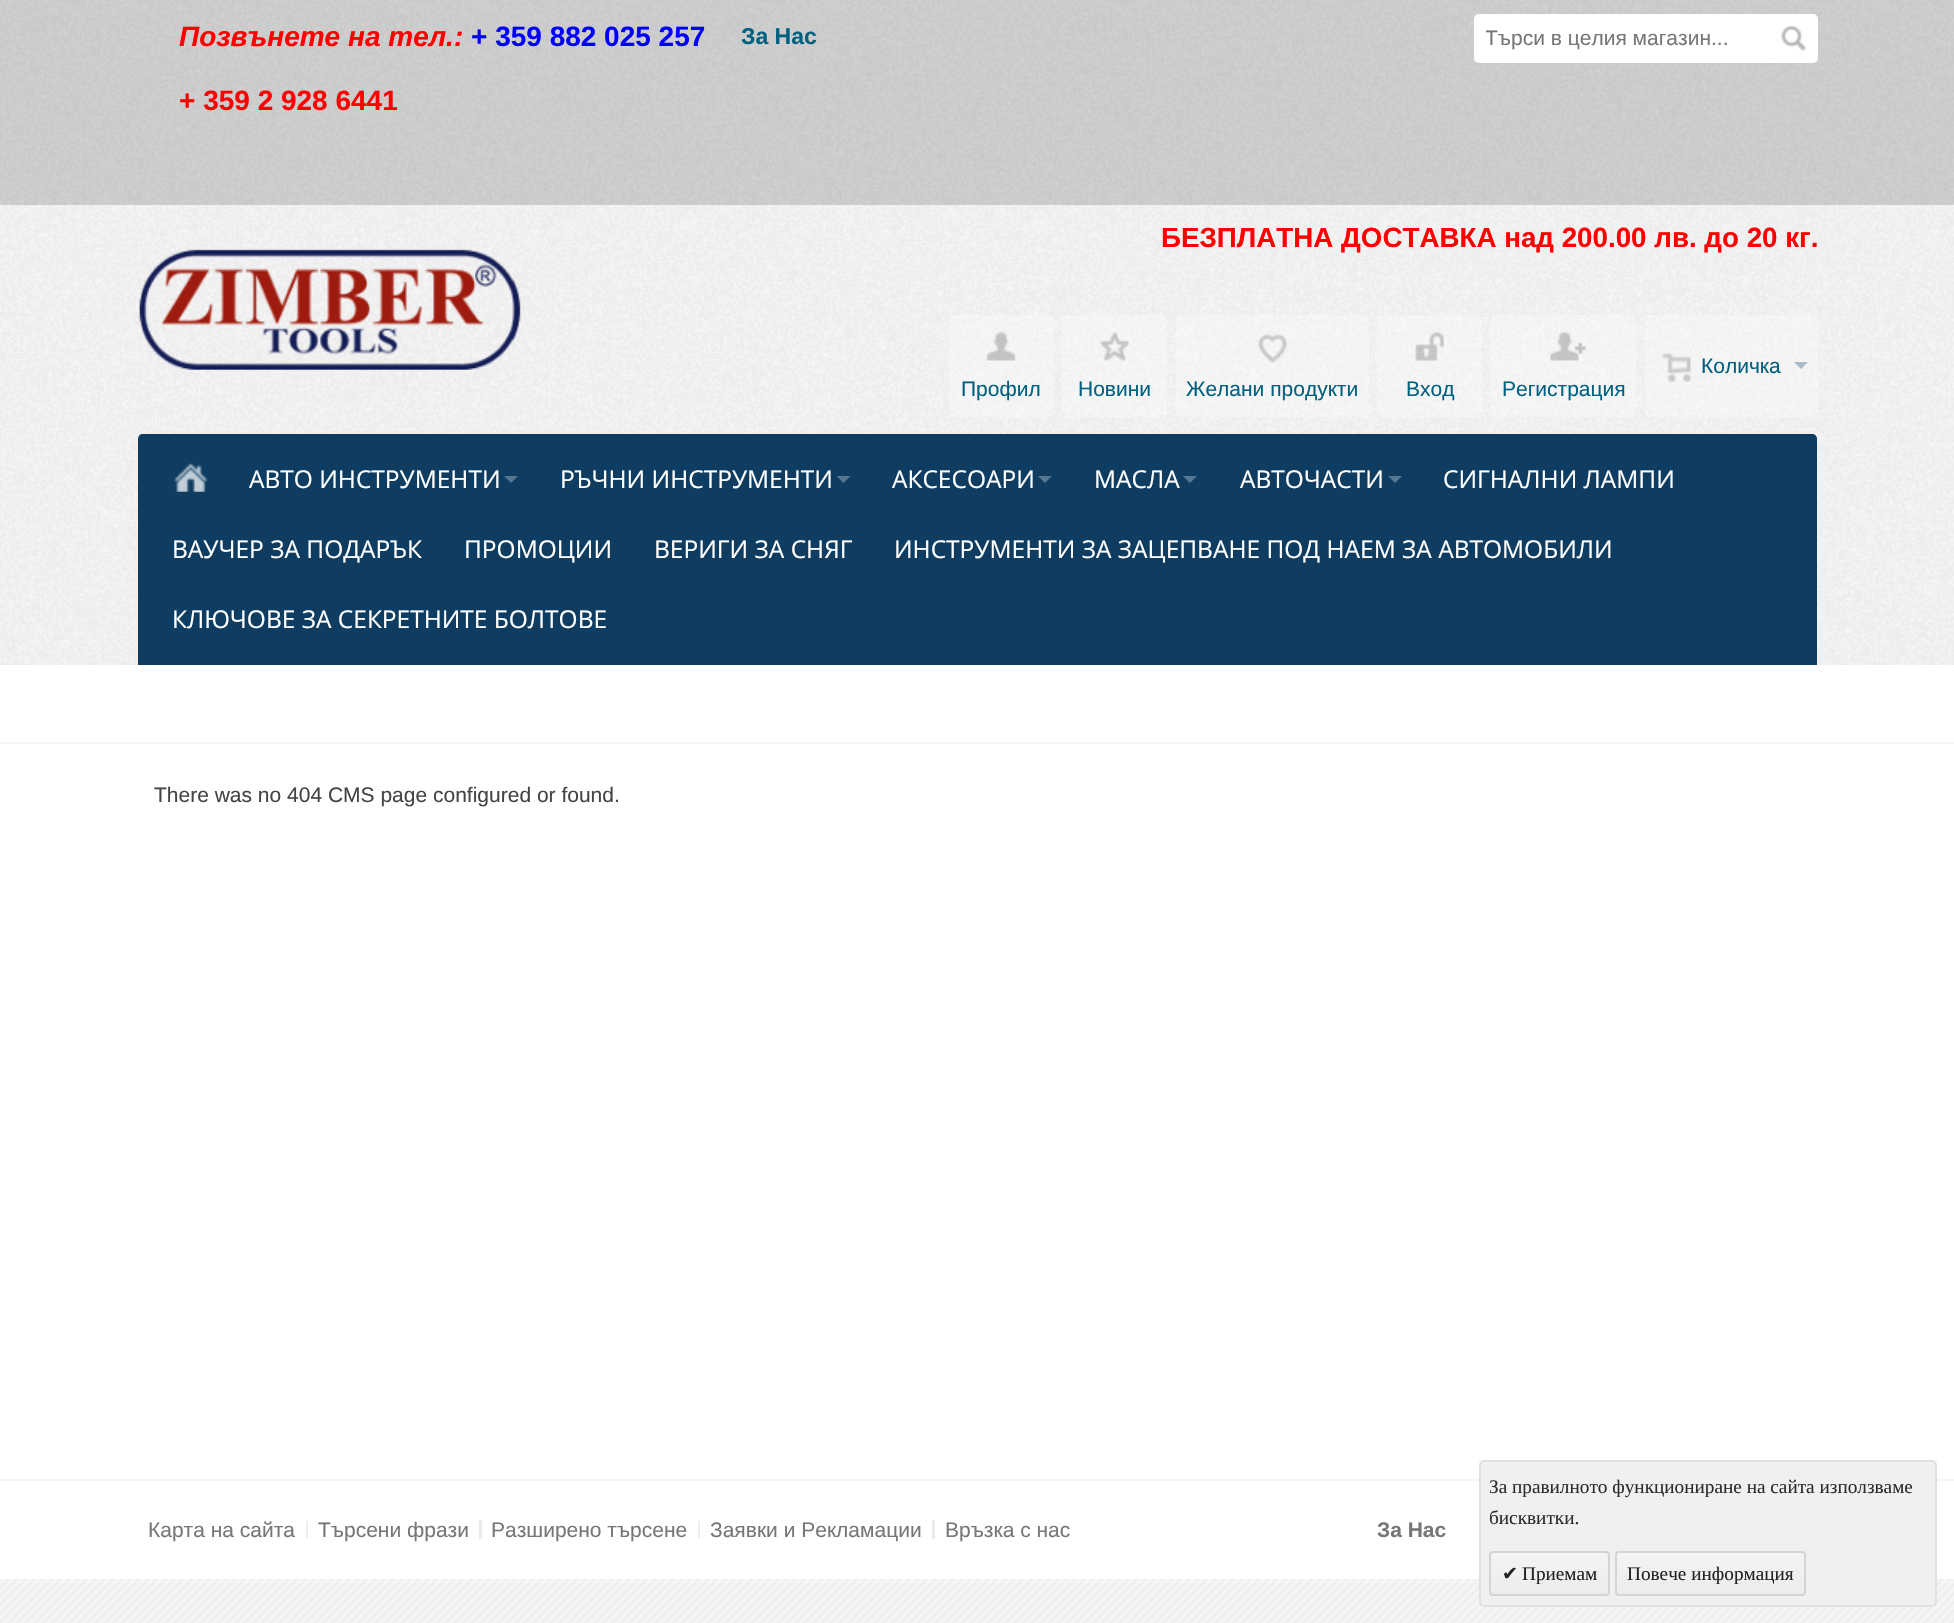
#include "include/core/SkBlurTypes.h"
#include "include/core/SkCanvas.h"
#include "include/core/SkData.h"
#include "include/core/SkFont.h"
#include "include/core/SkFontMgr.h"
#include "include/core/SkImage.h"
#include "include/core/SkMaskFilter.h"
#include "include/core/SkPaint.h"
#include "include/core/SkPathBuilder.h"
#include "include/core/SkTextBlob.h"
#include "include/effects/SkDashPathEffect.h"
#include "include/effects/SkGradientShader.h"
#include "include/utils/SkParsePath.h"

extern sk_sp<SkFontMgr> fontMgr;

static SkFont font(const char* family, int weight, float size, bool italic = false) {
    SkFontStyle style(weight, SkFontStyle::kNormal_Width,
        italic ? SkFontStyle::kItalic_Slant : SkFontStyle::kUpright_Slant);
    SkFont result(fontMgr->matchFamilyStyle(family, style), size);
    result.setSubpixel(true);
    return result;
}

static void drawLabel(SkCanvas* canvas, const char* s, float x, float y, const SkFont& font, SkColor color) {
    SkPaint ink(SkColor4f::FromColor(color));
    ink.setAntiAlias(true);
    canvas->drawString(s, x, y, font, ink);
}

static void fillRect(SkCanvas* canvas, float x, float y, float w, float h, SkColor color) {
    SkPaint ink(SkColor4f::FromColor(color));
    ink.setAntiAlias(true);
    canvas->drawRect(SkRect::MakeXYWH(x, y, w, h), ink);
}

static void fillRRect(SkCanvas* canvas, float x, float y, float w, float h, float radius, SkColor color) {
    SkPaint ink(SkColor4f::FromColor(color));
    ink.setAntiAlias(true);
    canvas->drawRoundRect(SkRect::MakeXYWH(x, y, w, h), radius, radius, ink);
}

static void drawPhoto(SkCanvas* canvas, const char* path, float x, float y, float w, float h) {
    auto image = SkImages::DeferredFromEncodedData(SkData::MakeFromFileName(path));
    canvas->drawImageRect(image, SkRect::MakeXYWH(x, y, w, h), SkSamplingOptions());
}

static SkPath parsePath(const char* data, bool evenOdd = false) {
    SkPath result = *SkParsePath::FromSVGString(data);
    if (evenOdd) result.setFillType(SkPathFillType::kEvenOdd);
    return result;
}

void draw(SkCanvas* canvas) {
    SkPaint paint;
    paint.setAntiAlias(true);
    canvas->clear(0xFFFFFFFF);
    fillRect(canvas, 0, 0, 1954, 665, 0xFFF5F5F5);
    drawPhoto(canvas, "assets/img1.png", 0, 0, 1954, 665);
    fillRect(canvas, 0, 0, 1954, 205, 0x26000000);
    SkFont font1 = font("Liberation Sans", 700, 28, true);
    drawLabel(canvas, "Позвънете на тел.:", 179, 46, font1, 0xFFFF0000);
    SkFont font2 = font("Liberation Sans", 700, 28);
    drawLabel(canvas, "+ 359 882 025 257", 471, 46, font2, 0xFF0000FF);
    drawLabel(canvas, "+ 359 2 928 6441", 179, 110, font2, 0xFFFF0000);
    SkFont font3 = font("Liberation Sans", 700, 23);
    drawLabel(canvas, "За Нас", 741, 44, font3, 0xFF006080);
    fillRRect(canvas, 1474, 14, 344, 49, 5, 0xFFFFFFFF);
    canvas->save();
    canvas->clipRect(SkRect::MakeXYWH(1486, 14, 271, 49));
    SkFont font4 = font("Liberation Sans", 400, 21);
    drawLabel(canvas, "Търси в целия магазин...", 1485, 45, font4, 0xFF777777);
    canvas->restore();
    drawPhoto(canvas, "assets/img2.png", 1781, 26, 26, 25);
    drawPhoto(canvas, "assets/img3.png", 139, 249, 382, 121);
    SkFont font5 = font("Liberation Sans", 700, 27.75f);
    drawLabel(canvas, "БЕЗПЛАТНА ДОСТАВКА над 200.00 лв. до 20 кг.", 1161, 247, font5, 0xFFFF0000);
    fillRRect(canvas, 1645, 315, 173, 102, 5, 0x4DFFFFFF);
    drawPhoto(canvas, "assets/img4.png", 1662, 353, 29, 29);
    drawLabel(canvas, "Количка", 1701, 373, font4, 0xFF006080);
    paint.setColor(0x4D00375C);
    canvas->drawPath(parsePath("M1794 362H1808L1801 369Z"), paint);
    fillRRect(canvas, 949, 315, 105, 102, 5, 0x4DFFFFFF);
    drawPhoto(canvas, "assets/img5.png", 986, 332, 30, 29);
    drawLabel(canvas, "Профил", 961, 396, font4, 0xFF006080);
    fillRRect(canvas, 1062, 315, 105, 102, 5, 0x4DFFFFFF);
    drawPhoto(canvas, "assets/img6.png", 1100, 332, 29, 29);
    drawLabel(canvas, "Новини", 1078, 396, font4, 0xFF006080);
    fillRRect(canvas, 1176, 315, 193, 102, 5, 0x4DFFFFFF);
    drawPhoto(canvas, "assets/img7.png", 1258, 334, 29, 29);
    drawLabel(canvas, "Желани продукти", 1186, 396, font4, 0xFF006080);
    fillRRect(canvas, 1377, 315, 105, 102, 5, 0x4DFFFFFF);
    drawPhoto(canvas, "assets/img8.png", 1415, 332, 29, 29);
    drawLabel(canvas, "Вход", 1406, 396, font4, 0xFF006080);
    fillRRect(canvas, 1491, 315, 145, 102, 5, 0x4DFFFFFF);
    drawPhoto(canvas, "assets/img9.png", 1550, 332, 36, 29);
    drawLabel(canvas, "Регистрация", 1502, 396, font4, 0xFF006080);
    paint.setColor(0xFF0F3D61);
    canvas->drawPath(parsePath("M143 434H1812C1815 434 1817 436 1817 439V665H138V439C138 436 140 434 143 434Z"), paint);
    drawPhoto(canvas, "assets/img10.png", 174, 463, 34, 29);
    SkFont font6 = font("Open Sans", 400, 24.5f);
    drawLabel(canvas, "АВТО ИНСТРУМЕНТИ", 249, 488, font6, 0xFFFFFFFF);
    paint.setColor(0xFF577790);
    canvas->drawPath(parsePath("M504 476H518L511 483Z"), paint);
    drawLabel(canvas, "РЪЧНИ ИНСТРУМЕНТИ", 560, 488, font6, 0xFFFFFFFF);
    canvas->drawPath(parsePath("M836.5 476H850.5L843.5 483Z"), paint);
    drawLabel(canvas, "АКСЕСОАРИ", 892, 488, font6, 0xFFFFFFFF);
    canvas->drawPath(parsePath("M1038 476H1052L1045 483Z"), paint);
    drawLabel(canvas, "МАСЛА", 1094, 488, font6, 0xFFFFFFFF);
    canvas->drawPath(parsePath("M1183 476H1197L1190 483Z"), paint);
    drawLabel(canvas, "АВТОЧАСТИ", 1240, 488, font6, 0xFFFFFFFF);
    canvas->drawPath(parsePath("M1388 476H1402L1395 483Z"), paint);
    drawLabel(canvas, "СИГНАЛНИ ЛАМПИ", 1443, 488, font6, 0xFFFFFFFF);
    drawLabel(canvas, "ВАУЧЕР ЗА ПОДАРЪК", 172, 558, font6, 0xFFFFFFFF);
    drawLabel(canvas, "ПРОМОЦИИ", 464, 558, font6, 0xFFFFFFFF);
    drawLabel(canvas, "ВЕРИГИ ЗА СНЯГ", 654, 558, font6, 0xFFFFFFFF);
    drawLabel(canvas, "ИНСТРУМЕНТИ ЗА ЗАЦЕПВАНЕ ПОД НАЕМ ЗА АВТОМОБИЛИ", 894, 558, font6, 0xFFFFFFFF);
    drawLabel(canvas, "КЛЮЧОВЕ ЗА СЕКРЕТНИТЕ БОЛТОВЕ", 172, 628, font6, 0xFFFFFFFF);
    fillRect(canvas, 0, 742, 1954, 2, 0xFFF5F5F5);
    drawLabel(canvas, "There was no 404 CMS page configured or found.", 154, 802, font4, 0xFF444444);
    fillRect(canvas, 0, 1579, 1954, 44, 0xFFF5F5F5);
    drawPhoto(canvas, "assets/img11.png", 0, 1579, 1954, 44);
    fillRect(canvas, 0, 1479, 1954, 2, 0xFFF5F5F5);
    drawPhoto(canvas, "assets/img12.png", 306, 1521, 2, 17);
    drawLabel(canvas, "Карта на сайта", 148, 1537, font4, 0xFF777777);
    fillRect(canvas, 479, 1520, 3, 19, 0xFFEBEBEB);
    drawLabel(canvas, "Търсени фрази", 318, 1537, font4, 0xFF777777);
    drawPhoto(canvas, "assets/img12.png", 698, 1521, 2, 17);
    drawLabel(canvas, "Разширено търсене", 491, 1537, font4, 0xFF777777);
    fillRect(canvas, 932, 1520, 3, 19, 0xFFEBEBEB);
    drawLabel(canvas, "Заявки и Рекламации", 710, 1537, font4, 0xFF777777);
    drawLabel(canvas, "Връзка с нас", 945, 1537, font4, 0xFF777777);
    SkFont font7 = font("Liberation Sans", 700, 21);
    drawLabel(canvas, "За Нас", 1377, 1537, font7, 0xFF777777);
    paint.setColor(0xFFF0F0F0);
    canvas->drawRoundRect(SkRect::MakeXYWH(1480, 1461, 456, 145), 4, 4, paint);
    paint.setStroke(true);
    paint.setStrokeWidth(2);
    paint.setColor(0xFFE0E0E0);
    canvas->drawRoundRect(SkRect::MakeXYWH(1480, 1461, 456, 145), 4, 4, paint);
    SkFont font8 = font("Liberation Serif", 400, 19.25f);
    drawLabel(canvas, "За правилното функциониране на сайта използваме", 1489, 1493, font8, 0xFF2C2C2C);
    drawLabel(canvas, "бисквитки.", 1489, 1524, font8, 0xFF2C2C2C);
    canvas->save();
    canvas->clipPath(parsePath("M1493 1551H1606C1608 1551 1610 1553 1610 1555V1592C1610 1594 1608 1596 1606 1596H1493C1491 1596 1489 1594 1489 1592V1555C1489 1553 1491 1551 1493 1551Z"), true);
    paint.setStroke(false);
    {
        const SkColor colors[] = {0xFFF4F4F4, 0xFFECECEC};
        const float stops[] = {0, 1};
        const SkPoint ends[] = {{1550, 1552}, {1550, 1594}};
        paint.setShader(SkGradientShader::MakeLinear(ends, colors, stops, 2, SkTileMode::kClamp));
        paint.setAlpha(255);
    }
    canvas->drawRect(SkRect::MakeXYWH(1489, 1552, 121, 42), paint);
    canvas->restore();
    paint.setStroke(true);
    paint.setShader(nullptr);
    paint.setColor(0xFFD4D4D4);
    canvas->drawRoundRect(SkRect::MakeXYWH(1490, 1552, 119, 43), 3, 3, paint);
    SkFont font9 = font("DejaVu Sans", 400, 19.25f);
    drawLabel(canvas, "✔", 1502, 1580, font9, 0xFF222222);
    drawLabel(canvas, "Приемам", 1522, 1580, font8, 0xFF222222);
    canvas->save();
    canvas->clipPath(parsePath("M1619 1551H1802C1804 1551 1806 1553 1806 1555V1592C1806 1594 1804 1596 1802 1596H1619C1617 1596 1615 1594 1615 1592V1555C1615 1553 1617 1551 1619 1551Z"), true);
    paint.setStroke(false);
    {
        const SkColor colors[] = {0xFFF4F4F4, 0xFFECECEC};
        const float stops[] = {0, 1};
        const SkPoint ends[] = {{1711, 1552}, {1711, 1594}};
        paint.setShader(SkGradientShader::MakeLinear(ends, colors, stops, 2, SkTileMode::kClamp));
        paint.setAlpha(255);
    }
    canvas->drawRect(SkRect::MakeXYWH(1615, 1552, 191, 42), paint);
    canvas->restore();
    paint.setStroke(true);
    paint.setShader(nullptr);
    paint.setColor(0xFFD4D4D4);
    canvas->drawRoundRect(SkRect::MakeXYWH(1616, 1552, 189, 43), 3, 3, paint);
    drawLabel(canvas, "Повече информация", 1627, 1580, font8, 0xFF222222);
}
